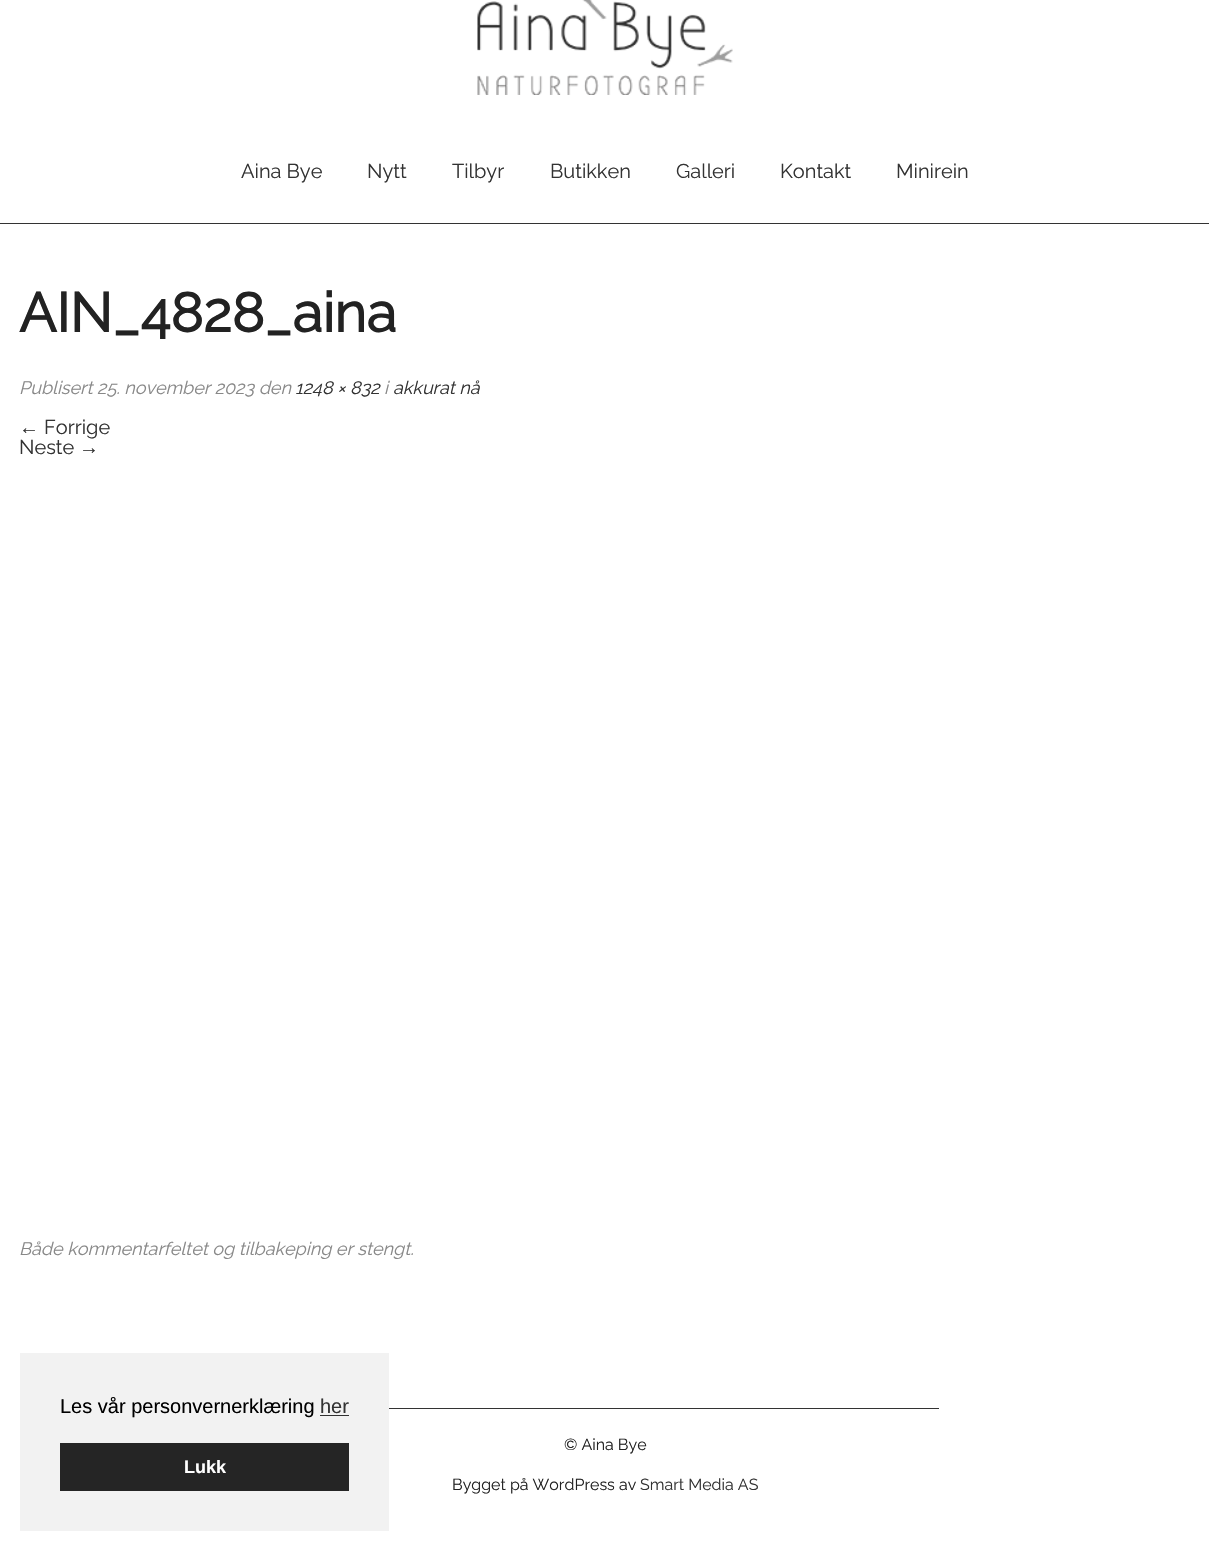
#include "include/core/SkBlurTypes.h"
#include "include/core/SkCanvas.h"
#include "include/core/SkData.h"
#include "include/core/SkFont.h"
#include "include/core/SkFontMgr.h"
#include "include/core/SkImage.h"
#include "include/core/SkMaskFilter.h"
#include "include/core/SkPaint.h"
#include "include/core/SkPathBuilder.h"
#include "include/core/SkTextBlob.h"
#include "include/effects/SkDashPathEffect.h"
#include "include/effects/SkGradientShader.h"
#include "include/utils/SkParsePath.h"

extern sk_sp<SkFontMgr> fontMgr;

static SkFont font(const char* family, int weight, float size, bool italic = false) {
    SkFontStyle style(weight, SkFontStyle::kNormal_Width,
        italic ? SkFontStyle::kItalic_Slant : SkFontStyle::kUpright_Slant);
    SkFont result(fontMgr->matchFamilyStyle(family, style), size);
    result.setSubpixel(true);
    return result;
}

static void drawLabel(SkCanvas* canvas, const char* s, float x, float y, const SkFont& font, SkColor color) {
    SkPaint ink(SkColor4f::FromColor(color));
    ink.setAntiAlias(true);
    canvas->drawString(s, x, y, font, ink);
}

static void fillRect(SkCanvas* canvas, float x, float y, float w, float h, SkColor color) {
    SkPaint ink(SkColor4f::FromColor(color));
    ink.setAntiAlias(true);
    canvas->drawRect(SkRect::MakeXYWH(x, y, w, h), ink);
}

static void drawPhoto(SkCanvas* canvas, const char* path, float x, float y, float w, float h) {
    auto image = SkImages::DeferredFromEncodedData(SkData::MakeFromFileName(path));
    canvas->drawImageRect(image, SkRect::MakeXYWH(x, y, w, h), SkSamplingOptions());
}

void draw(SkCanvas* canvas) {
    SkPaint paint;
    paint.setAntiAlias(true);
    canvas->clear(0xFFFFFFFF);
    drawPhoto(canvas, "assets/img1.png", 477, 0, 256, 95);
    fillRect(canvas, 0, 223, 1209, 1, 0xFF333333);
    SkFont font1 = font("Raleway", 100, 20);
    drawLabel(canvas, "Aina Bye", 241, 178, font1, 0xFF333333);
    drawLabel(canvas, "Nytt", 367, 178, font1, 0xFF333333);
    drawLabel(canvas, "Tilbyr", 452, 178, font1, 0xFF333333);
    drawLabel(canvas, "Butikken", 550, 178, font1, 0xFF333333);
    drawLabel(canvas, "Galleri", 676, 178, font1, 0xFF333333);
    drawLabel(canvas, "Kontakt", 780, 178, font1, 0xFF333333);
    drawLabel(canvas, "Minirein", 896, 178, font1, 0xFF333333);
    SkFont font2 = font("Raleway", 700, 55);
    drawLabel(canvas, "AIN_4828_aina", 19, 332, font2, 0xFF222222);
    SkFont font3 = font("Raleway", 100, 18, true);
    drawLabel(canvas, "Publisert 25. november 2023 den", 19, 394, font3, 0xFF888888);
    drawLabel(canvas, "1248 × 832", 295, 394, font3, 0xFF333333);
    drawLabel(canvas, "i", 384, 394, font3, 0xFF888888);
    drawLabel(canvas, "akkurat nå", 393, 394, font3, 0xFF333333);
    SkFont font4 = font("Liberation Sans", 400, 20);
    drawLabel(canvas, "←", 19, 434, font4, 0xFF333333);
    drawLabel(canvas, "Forrige", 44, 434, font1, 0xFF333333);
    drawLabel(canvas, "Neste", 19, 454, font1, 0xFF333333);
    drawLabel(canvas, "→", 79, 454, font4, 0xFF333333);
    drawLabel(canvas, "Både kommentarfeltet og tilbakeping er stengt.", 19, 1255, font3, 0xFF888888);
    fillRect(canvas, 20, 1353, 369, 178, 0xFFF2F2F2);
    drawLabel(canvas, "Les vår personvernerklæring", 60, 1413, font4, 0xFF000000);
    drawLabel(canvas, "her", 320, 1413, font4, 0xFF333333);
    fillRect(canvas, 320, 1415, 29, 1, 0xFF303030);
    fillRect(canvas, 60, 1443, 289, 48, 0xFF252525);
    SkFont font5 = font("Liberation Sans", 700, 18);
    drawLabel(canvas, "Lukk", 184, 1473, font5, 0xFFFFFFFF);
    fillRect(canvas, 389, 1408, 550, 1, 0xFF333333);
    SkFont font6 = font("Raleway", 100, 16);
    drawLabel(canvas, "© Aina Bye", 564, 1450, font6, 0xFF222222);
    drawLabel(canvas, "Bygget på WordPress av", 452, 1490, font6, 0xFF222222);
    drawLabel(canvas, "Smart Media AS", 640, 1490, font6, 0xFF333333);
}
